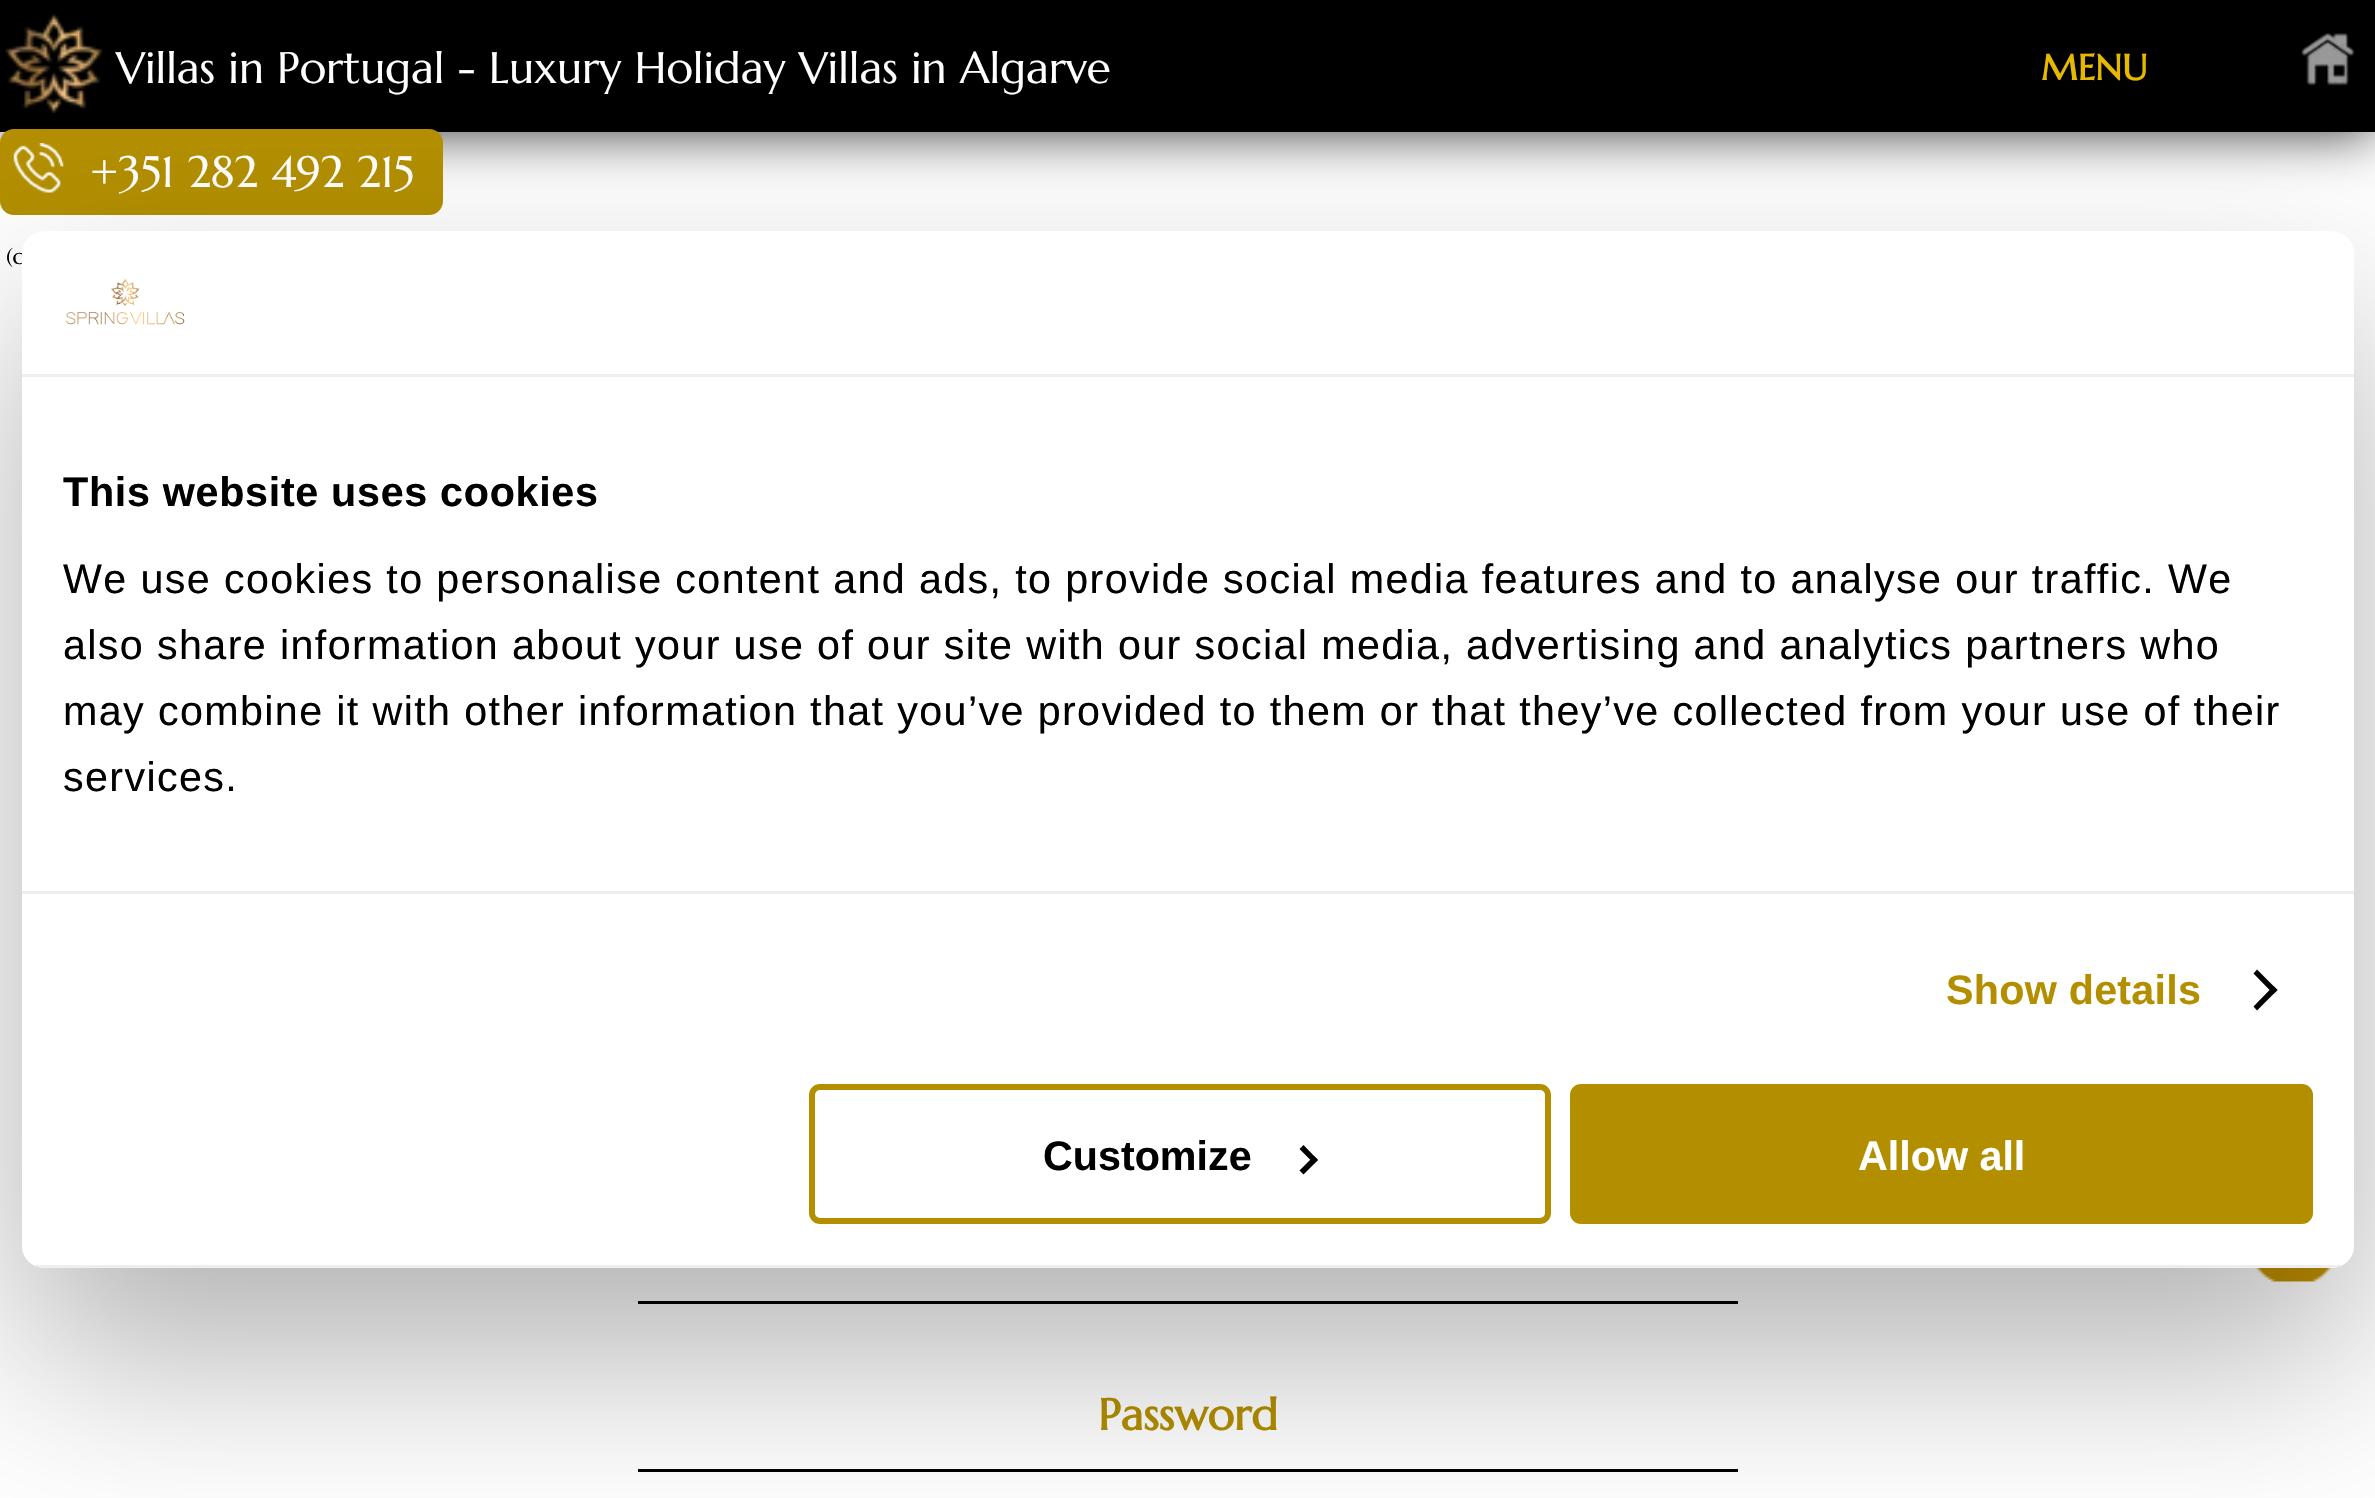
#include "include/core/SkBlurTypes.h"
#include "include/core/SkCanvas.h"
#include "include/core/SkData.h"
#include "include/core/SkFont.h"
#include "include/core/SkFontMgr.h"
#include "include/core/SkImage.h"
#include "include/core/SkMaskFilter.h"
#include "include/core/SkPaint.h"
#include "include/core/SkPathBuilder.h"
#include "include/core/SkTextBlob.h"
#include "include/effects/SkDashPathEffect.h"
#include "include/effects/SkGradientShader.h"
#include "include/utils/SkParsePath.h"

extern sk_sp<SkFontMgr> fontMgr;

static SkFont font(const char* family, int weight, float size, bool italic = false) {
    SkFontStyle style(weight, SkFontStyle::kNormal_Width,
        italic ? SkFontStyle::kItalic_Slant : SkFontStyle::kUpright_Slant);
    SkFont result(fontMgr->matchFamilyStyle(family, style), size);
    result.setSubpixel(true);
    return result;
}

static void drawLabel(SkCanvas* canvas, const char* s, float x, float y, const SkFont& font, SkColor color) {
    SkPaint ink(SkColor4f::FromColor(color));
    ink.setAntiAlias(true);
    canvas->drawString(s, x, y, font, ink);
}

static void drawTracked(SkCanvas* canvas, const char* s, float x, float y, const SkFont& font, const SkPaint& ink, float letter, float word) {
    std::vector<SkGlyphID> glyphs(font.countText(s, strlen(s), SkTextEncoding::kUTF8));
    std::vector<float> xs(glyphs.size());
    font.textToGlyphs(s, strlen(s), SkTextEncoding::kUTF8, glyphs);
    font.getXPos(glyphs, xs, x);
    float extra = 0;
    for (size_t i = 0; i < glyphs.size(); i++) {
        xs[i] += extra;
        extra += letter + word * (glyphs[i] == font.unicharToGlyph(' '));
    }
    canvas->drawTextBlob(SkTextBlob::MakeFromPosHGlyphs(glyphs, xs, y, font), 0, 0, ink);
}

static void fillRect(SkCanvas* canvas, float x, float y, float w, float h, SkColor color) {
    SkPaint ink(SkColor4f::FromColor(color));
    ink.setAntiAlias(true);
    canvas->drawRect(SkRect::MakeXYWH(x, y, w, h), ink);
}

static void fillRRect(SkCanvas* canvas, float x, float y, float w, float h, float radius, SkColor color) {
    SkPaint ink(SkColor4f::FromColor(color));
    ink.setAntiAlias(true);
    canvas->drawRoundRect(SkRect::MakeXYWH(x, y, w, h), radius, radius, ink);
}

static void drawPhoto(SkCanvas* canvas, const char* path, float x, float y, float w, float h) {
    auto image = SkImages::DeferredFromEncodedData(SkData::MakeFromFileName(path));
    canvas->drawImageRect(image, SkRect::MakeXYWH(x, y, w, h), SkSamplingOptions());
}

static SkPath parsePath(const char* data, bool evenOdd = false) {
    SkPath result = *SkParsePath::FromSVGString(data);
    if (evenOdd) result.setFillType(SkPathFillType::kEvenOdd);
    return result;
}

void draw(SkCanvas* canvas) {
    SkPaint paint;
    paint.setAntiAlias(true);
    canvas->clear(0xFFFFFFFF);
    paint.setColor(0xFF333333);
    paint.setMaskFilter(SkMaskFilter::MakeBlur(kNormal_SkBlurStyle, 27.5f));
    canvas->drawRect(SkRect::MakeXYWH(0, 0, 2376, 132), paint);
    paint.setMaskFilter(nullptr);
    fillRect(canvas, 0, 0, 2375, 132, 0xFF000000);
    drawPhoto(canvas, "assets/img1.png", 5, 14, 98, 99);
    SkFont font1 = font("Marcellus", 400, 44);
    drawLabel(canvas, "Villas in Portugal - Luxury Holiday Villas in Algarve", 116, 83, font1, 0xFFFFFFFF);
    SkFont font2 = font("Marcellus", 700, 36);
    drawLabel(canvas, "MENU", 2041, 80, font2, 0xFFE6B800);
    drawPhoto(canvas, "assets/img2.png", 2301, 33, 54, 53);
    fillRRect(canvas, 0, 129, 443, 86, 14, 0xFFB38F00);
    drawPhoto(canvas, "assets/img3.png", 13, 143, 51, 50);
    drawLabel(canvas, "+351 282 492 215", 90, 187, font1, 0xFFFFFFFF);
    SkFont font3 = font("Marcellus", 400, 22);
    drawLabel(canvas, "(c", 6, 264, font3, 0xFF000000);
    fillRect(canvas, 638, 1301, 1100, 3, 0xFF000000);
    fillRect(canvas, 638, 1469, 1100, 3, 0xFF000000);
    SkFont font4 = font("Marcellus", 700, 44);
    drawLabel(canvas, "Password", 1098, 1430, font4, 0xFFB38F00);
    drawPhoto(canvas, "assets/img4.png", 2256, 1267, 77, 15);
    paint.setColor(0x4D000000);
    paint.setMaskFilter(SkMaskFilter::MakeBlur(kNormal_SkBlurStyle, 93.5f));
    canvas->drawRoundRect(SkRect::MakeXYWH(22, 319, 2332, 1037), 22, 22, paint);
    paint.setMaskFilter(nullptr);
    fillRRect(canvas, 22, 231, 2332, 1037, 22, 0xFFFFFFFF);
    fillRect(canvas, 22, 374, 2332, 3, 0xFFEEEEEE);
    drawPhoto(canvas, "assets/img5.png", 65, 278, 120, 47);
    fillRect(canvas, 22, 891, 2332, 3, 0xFFEEEEEE);
    SkFont font5 = font("Liberation Sans", 700, 41.25f);
    paint.setColor(0xFF000000);
    drawTracked(canvas, "This website uses cookies", 63, 506, font5, paint, 0.7f, 0);
    SkFont font6 = font("Liberation Sans", 400, 41.25f);
    drawTracked(canvas, "We use cookies to personalise content and ads, to provide social media features and to analyse our traffic. We", 63, 593, font6, paint, 1.38f, 0);
    drawTracked(canvas, "also share information about your use of our site with our social media, advertising and analytics partners who", 63, 659, font6, paint, 1.38f, 0);
    drawTracked(canvas, "may combine it with other information that you’ve provided to them or that they’ve collected from your use of their", 63, 725, font6, paint, 1.38f, 0);
    drawTracked(canvas, "services.", 63, 791, font6, paint, 1.38f, 0);
    paint.setColor(0xFFB38F00);
    drawTracked(canvas, "Show details", 1946, 1004, font5, paint, 0.25f, 0);
    paint.setColor(0xFF000000);
    canvas->drawPath(parsePath("M2257 969.5L2277.5 990L2273.5 994L2253.5 973.5Z"), paint);
    canvas->drawPath(parsePath("M2273.5 986L2277.5 990L2257 1010.5L2253.5 1006.5Z"), paint);
    canvas->save();
    canvas->clipPath(parsePath("M44 231H2332C2344 231 2354 241 2354 253V1246C2354 1258 2344 1268 2332 1268H44C32 1268 22 1258 22 1246V253C22 241 32 231 44 231Z"), true);
    fillRect(canvas, 33, 1265, 2310, 3, 0xFFEEEEEE);
    canvas->restore();
    paint.setStroke(true);
    paint.setStrokeWidth(6);
    paint.setColor(0xFFB38F00);
    canvas->drawRoundRect(SkRect::MakeXYWH(812, 1087, 736, 134), 8, 8, paint);
    drawLabel(canvas, "Customize", 1043, 1170, font5, 0xFF000000);
    paint.setStroke(false);
    paint.setColor(0xFF000000);
    canvas->drawPath(parsePath("M1303.5 1145L1318 1160L1314 1163.5L1299.5 1149Z"), paint);
    canvas->drawPath(parsePath("M1314 1156L1318 1160L1303.5 1174.5L1299.5 1170.5Z"), paint);
    paint.setColor(0xFFB38F00);
    canvas->drawRoundRect(SkRect::MakeXYWH(1573, 1087, 737, 134), 8, 8, paint);
    paint.setStroke(true);
    canvas->drawRoundRect(SkRect::MakeXYWH(1573, 1087, 737, 134), 8, 8, paint);
    drawLabel(canvas, "Allow all", 1858, 1170, font5, 0xFFFFFFFF);
}
